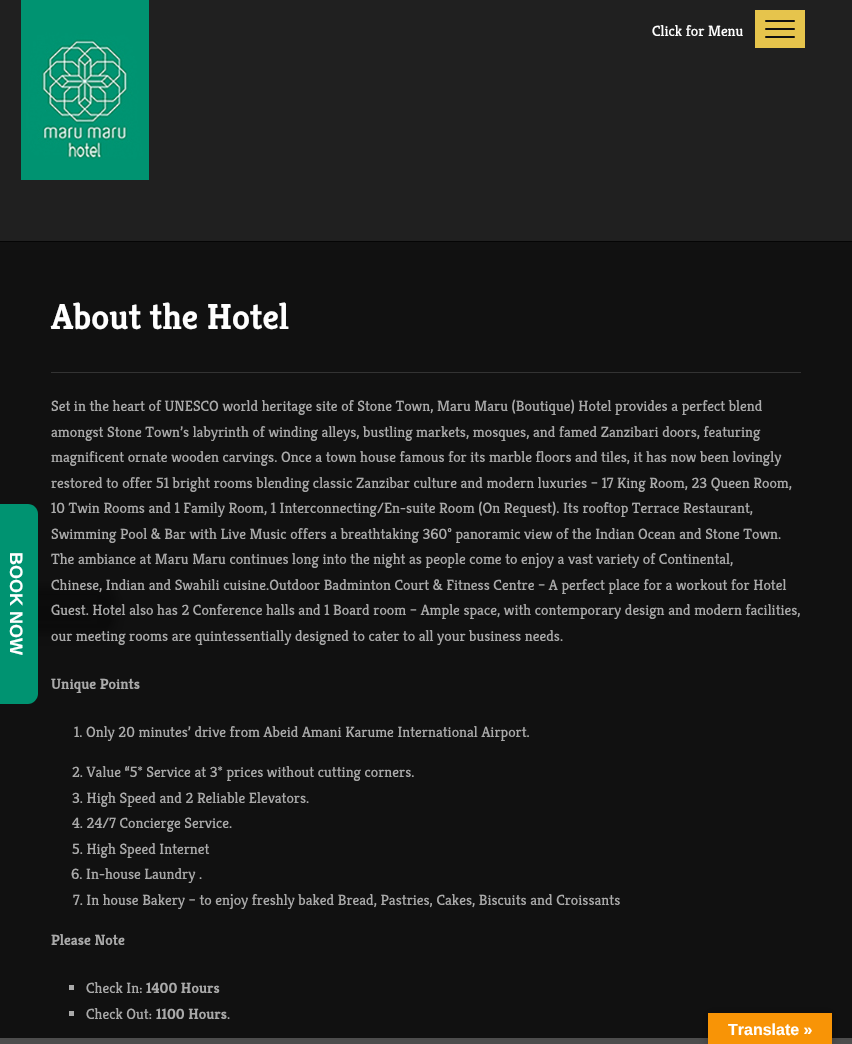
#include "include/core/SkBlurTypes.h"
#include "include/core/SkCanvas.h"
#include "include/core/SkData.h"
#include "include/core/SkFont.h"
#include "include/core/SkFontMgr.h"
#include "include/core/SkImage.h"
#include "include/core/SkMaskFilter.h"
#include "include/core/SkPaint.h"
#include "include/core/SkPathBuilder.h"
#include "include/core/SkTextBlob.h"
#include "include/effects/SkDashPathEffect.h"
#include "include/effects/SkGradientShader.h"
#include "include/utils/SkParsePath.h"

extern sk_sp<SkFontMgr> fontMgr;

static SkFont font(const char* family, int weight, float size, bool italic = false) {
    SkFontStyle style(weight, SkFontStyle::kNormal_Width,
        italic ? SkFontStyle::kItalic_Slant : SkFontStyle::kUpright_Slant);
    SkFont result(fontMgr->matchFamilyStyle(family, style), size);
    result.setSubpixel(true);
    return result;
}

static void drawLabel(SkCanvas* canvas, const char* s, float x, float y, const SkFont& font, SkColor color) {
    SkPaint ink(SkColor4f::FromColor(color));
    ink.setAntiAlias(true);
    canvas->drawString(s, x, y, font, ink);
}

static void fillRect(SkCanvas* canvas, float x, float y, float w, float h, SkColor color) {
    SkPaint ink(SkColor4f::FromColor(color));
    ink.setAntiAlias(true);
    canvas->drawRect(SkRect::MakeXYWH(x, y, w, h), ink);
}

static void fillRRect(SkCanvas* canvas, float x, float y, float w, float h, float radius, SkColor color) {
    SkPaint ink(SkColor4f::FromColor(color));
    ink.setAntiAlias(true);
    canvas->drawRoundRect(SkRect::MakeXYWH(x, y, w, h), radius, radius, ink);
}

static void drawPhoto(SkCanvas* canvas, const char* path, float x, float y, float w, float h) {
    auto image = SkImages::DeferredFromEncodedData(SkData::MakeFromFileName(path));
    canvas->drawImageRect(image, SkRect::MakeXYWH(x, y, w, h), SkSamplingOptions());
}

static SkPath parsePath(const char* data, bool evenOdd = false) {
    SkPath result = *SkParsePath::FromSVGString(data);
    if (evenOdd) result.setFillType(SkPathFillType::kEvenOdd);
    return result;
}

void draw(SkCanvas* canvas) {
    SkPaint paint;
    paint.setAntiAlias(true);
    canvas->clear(0xFF202020);
    fillRect(canvas, 0, 242, 852, 796, 0xFF111111);
    paint.setColor(0x3B000000);
    paint.setMaskFilter(SkMaskFilter::MakeBlur(kNormal_SkBlurStyle, 3));
    canvas->drawRoundRect(SkRect::MakeXYWH(-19, 587, 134, 45), 10, 10, paint);
    paint.setMaskFilter(nullptr);
    paint.setColor(0x30000000);
    paint.setMaskFilter(SkMaskFilter::MakeBlur(kNormal_SkBlurStyle, 10));
    canvas->drawRoundRect(SkRect::MakeXYWH(-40, 591, 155, 45), 10, 10, paint);
    paint.setMaskFilter(nullptr);
    paint.setColor(0xFF009371);
    canvas->drawPath(parsePath("M38 514V694C38 699 33 704 28 704H-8V504H28C33 504 38 508 38 514Z"), paint);
    SkFont font1 = font("Liberation Sans", 700, 18);
    canvas->save();
    canvas->rotate(90, 10, 552);
    drawLabel(canvas, "BOOK NOW", 10, 552, font1, 0xFFFFFFFF);
    canvas->restore();
    drawPhoto(canvas, "assets/img1.png", 21, 0, 128, 180);
    SkFont font2 = font("Kreon", 400, 15);
    drawLabel(canvas, "Click for Menu", 652, 36, font2, 0xFFFFFFFF);
    fillRect(canvas, 755, 10, 50, 38, 0xFFE6C44C);
    fillRRect(canvas, 765, 20, 30, 2, 1, 0xFF111111);
    fillRRect(canvas, 765, 28, 30, 2, 1, 0xFF111111);
    fillRRect(canvas, 765, 36, 30, 2, 1, 0xFF111111);
    fillRect(canvas, 0, 241, 852, 1, 0xFF050505);
    SkFont font3 = font("Kreon", 700, 36);
    drawLabel(canvas, "About the Hotel", 51, 329, font3, 0xFFFFFFFF);
    fillRect(canvas, 51, 372, 750, 1, 0xFF333333);
    drawLabel(canvas, "Set in the heart of UNESCO world heritage site of Stone Town, Maru Maru (Boutique) Hotel provides a perfect blend", 51, 411, font2, 0xFFAAAAAA);
    drawLabel(canvas, "amongst Stone Town’s labyrinth of winding alleys, bustling markets, mosques, and famed Zanzibari doors, featuring", 51, 437, font2, 0xFFAAAAAA);
    drawLabel(canvas, "magnificent ornate wooden carvings. Once a town house famous for its marble floors and tiles, it has now been lovingly", 51, 462, font2, 0xFFAAAAAA);
    drawLabel(canvas, "restored to offer 51 bright rooms blending classic Zanzibar culture and modern luxuries – 17 King Room, 23 Queen Room,", 51, 488, font2, 0xFFAAAAAA);
    drawLabel(canvas, "10 Twin Rooms and 1 Family Room, 1 Interconnecting/En-suite Room (On Request). Its rooftop Terrace Restaurant,", 51, 513, font2, 0xFFAAAAAA);
    drawLabel(canvas, "Swimming Pool & Bar with Live Music offers a breathtaking 360° panoramic view of the Indian Ocean and Stone Town.", 51, 539, font2, 0xFFAAAAAA);
    drawLabel(canvas, "The ambiance at Maru Maru continues long into the night as people come to enjoy a vast variety of Continental,", 51, 564, font2, 0xFFAAAAAA);
    drawLabel(canvas, "Chinese, Indian and Swahili cuisine.Outdoor Badminton Court & Fitness Centre – A perfect place for a workout for Hotel", 51, 590, font2, 0xFFAAAAAA);
    drawLabel(canvas, "Guest. Hotel also has 2 Conference halls and 1 Board room – Ample space, with contemporary design and modern facilities,", 51, 615, font2, 0xFFAAAAAA);
    drawLabel(canvas, "our meeting rooms are quintessentially designed to cater to all your business needs.", 51, 641, font2, 0xFFAAAAAA);
    SkFont font4 = font("Kreon", 700, 15);
    drawLabel(canvas, "Unique Points", 51, 689, font4, 0xFFAAAAAA);
    drawLabel(canvas, "1. Only 20 minutes’ drive from Abeid Amani Karume International Airport.", 74, 737, font2, 0xFFAAAAAA);
    drawLabel(canvas, "2. Value “5* Service at 3* prices without cutting corners.", 72, 777, font2, 0xFFAAAAAA);
    drawLabel(canvas, "3. High Speed and 2 Reliable Elevators.", 72, 803, font2, 0xFFAAAAAA);
    drawLabel(canvas, "4. 24/7 Concierge Service.", 72, 828, font2, 0xFFAAAAAA);
    drawLabel(canvas, "5. High Speed Internet", 72, 854, font2, 0xFFAAAAAA);
    drawLabel(canvas, "6. In-house Laundry .", 71, 879, font2, 0xFFAAAAAA);
    drawLabel(canvas, "7. In house Bakery – to enjoy freshly baked Bread, Pastries, Cakes, Biscuits and Croissants", 73, 905, font2, 0xFFAAAAAA);
    drawLabel(canvas, "Please Note", 51, 945, font4, 0xFFAAAAAA);
    fillRect(canvas, 69, 985, 5, 5, 0xFFAAAAAA);
    drawLabel(canvas, "Check In:", 86, 993, font2, 0xFFAAAAAA);
    drawLabel(canvas, "1400 Hours", 146, 993, font4, 0xFFAAAAAA);
    fillRect(canvas, 69, 1011, 5, 5, 0xFFAAAAAA);
    drawLabel(canvas, "Check Out:", 86, 1019, font2, 0xFFAAAAAA);
    drawLabel(canvas, "1100 Hours", 156, 1019, font4, 0xFFAAAAAA);
    drawLabel(canvas, ".", 227, 1019, font2, 0xFFAAAAAA);
    fillRect(canvas, 0, 1038, 852, 6, 0xFF4D4D4D);
    paint.setColor(0x4D000000);
    paint.setMaskFilter(SkMaskFilter::MakeBlur(kNormal_SkBlurStyle, 4.5f));
    canvas->drawRect(SkRect::MakeXYWH(708, 1013, 124, 31), paint);
    paint.setMaskFilter(nullptr);
    fillRect(canvas, 708, 1013, 124, 31, 0xFFF89406);
    SkFont font5 = font("Liberation Sans", 700, 16);
    drawLabel(canvas, "Translate »", 728, 1035, font5, 0xFFFFFFFF);
}
